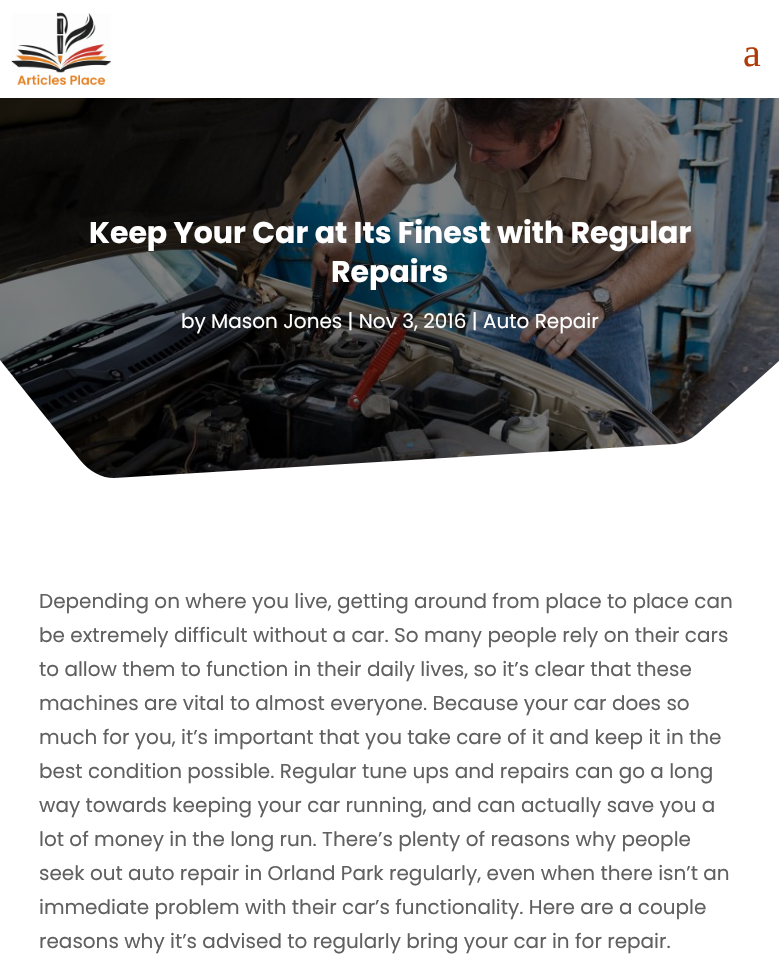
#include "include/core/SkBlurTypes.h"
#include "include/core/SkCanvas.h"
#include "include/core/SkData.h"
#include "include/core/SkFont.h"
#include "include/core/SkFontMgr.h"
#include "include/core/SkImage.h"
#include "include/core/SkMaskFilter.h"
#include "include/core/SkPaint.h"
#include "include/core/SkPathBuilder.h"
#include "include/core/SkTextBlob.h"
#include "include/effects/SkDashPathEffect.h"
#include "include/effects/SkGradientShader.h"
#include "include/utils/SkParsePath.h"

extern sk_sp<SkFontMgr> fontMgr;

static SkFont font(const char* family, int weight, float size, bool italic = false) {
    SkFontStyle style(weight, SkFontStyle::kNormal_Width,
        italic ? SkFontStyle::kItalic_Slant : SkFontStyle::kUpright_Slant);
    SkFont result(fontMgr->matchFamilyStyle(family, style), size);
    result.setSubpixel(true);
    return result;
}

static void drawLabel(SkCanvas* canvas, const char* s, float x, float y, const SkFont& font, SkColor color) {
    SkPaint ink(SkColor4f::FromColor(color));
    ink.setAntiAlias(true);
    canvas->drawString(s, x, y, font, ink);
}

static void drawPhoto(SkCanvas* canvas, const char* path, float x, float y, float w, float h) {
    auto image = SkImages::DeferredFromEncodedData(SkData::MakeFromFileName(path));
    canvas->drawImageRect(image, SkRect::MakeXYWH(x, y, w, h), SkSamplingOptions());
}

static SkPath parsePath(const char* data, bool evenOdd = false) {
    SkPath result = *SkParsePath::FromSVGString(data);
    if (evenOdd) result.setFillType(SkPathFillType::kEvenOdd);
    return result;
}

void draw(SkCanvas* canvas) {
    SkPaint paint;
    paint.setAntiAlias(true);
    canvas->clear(0xFFFFFFFF);
    drawPhoto(canvas, "assets/img1.png", 11, 12, 101, 73);
    SkFont font1 = font("Liberation Serif", 400, 40);
    drawLabel(canvas, "a", 743, 66, font1, 0xFFB23A07);
    drawPhoto(canvas, "assets/img2.png", 0, 98, 779, 380);
    SkFont font2 = font("Poppins", 700, 30);
    drawLabel(canvas, "Keep Your Car at Its Finest with Regular", 89, 243, font2, 0xFFFFFFFF);
    drawLabel(canvas, "Repairs", 331, 282, font2, 0xFFFFFFFF);
    SkFont font3 = font("Poppins", 400, 20);
    drawLabel(canvas, "by Mason Jones | Nov 3, 2016 | Auto Repair", 181, 328, font3, 0xFFFFFFFF);
    paint.setColor(0xFFFFFFFF);
    canvas->drawPath(parsePath("M114 478L675 444C683 443 690 440 697 434L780 360V485H0V360L80 460C90 472 102 478 114 478Z"), paint);
    drawLabel(canvas, "Depending on where you live, getting around from place to place can", 39, 608, font3, 0xFF606060);
    drawLabel(canvas, "be extremely difficult without a car. So many people rely on their cars", 39, 642, font3, 0xFF606060);
    drawLabel(canvas, "to allow them to function in their daily lives, so it’s clear that these", 39, 676, font3, 0xFF606060);
    drawLabel(canvas, "machines are vital to almost everyone. Because your car does so", 39, 710, font3, 0xFF606060);
    drawLabel(canvas, "much for you, it’s important that you take care of it and keep it in the", 39, 744, font3, 0xFF606060);
    drawLabel(canvas, "best condition possible. Regular tune ups and repairs can go a long", 39, 778, font3, 0xFF606060);
    drawLabel(canvas, "way towards keeping your car running, and can actually save you a", 39, 812, font3, 0xFF606060);
    drawLabel(canvas, "lot of money in the long run. There’s plenty of reasons why people", 39, 846, font3, 0xFF606060);
    drawLabel(canvas, "seek out auto repair in Orland Park regularly, even when there isn’t an", 39, 880, font3, 0xFF606060);
    drawLabel(canvas, "immediate problem with their car’s functionality. Here are a couple", 39, 914, font3, 0xFF606060);
    drawLabel(canvas, "reasons why it’s advised to regularly bring your car in for repair.", 39, 948, font3, 0xFF606060);
}
